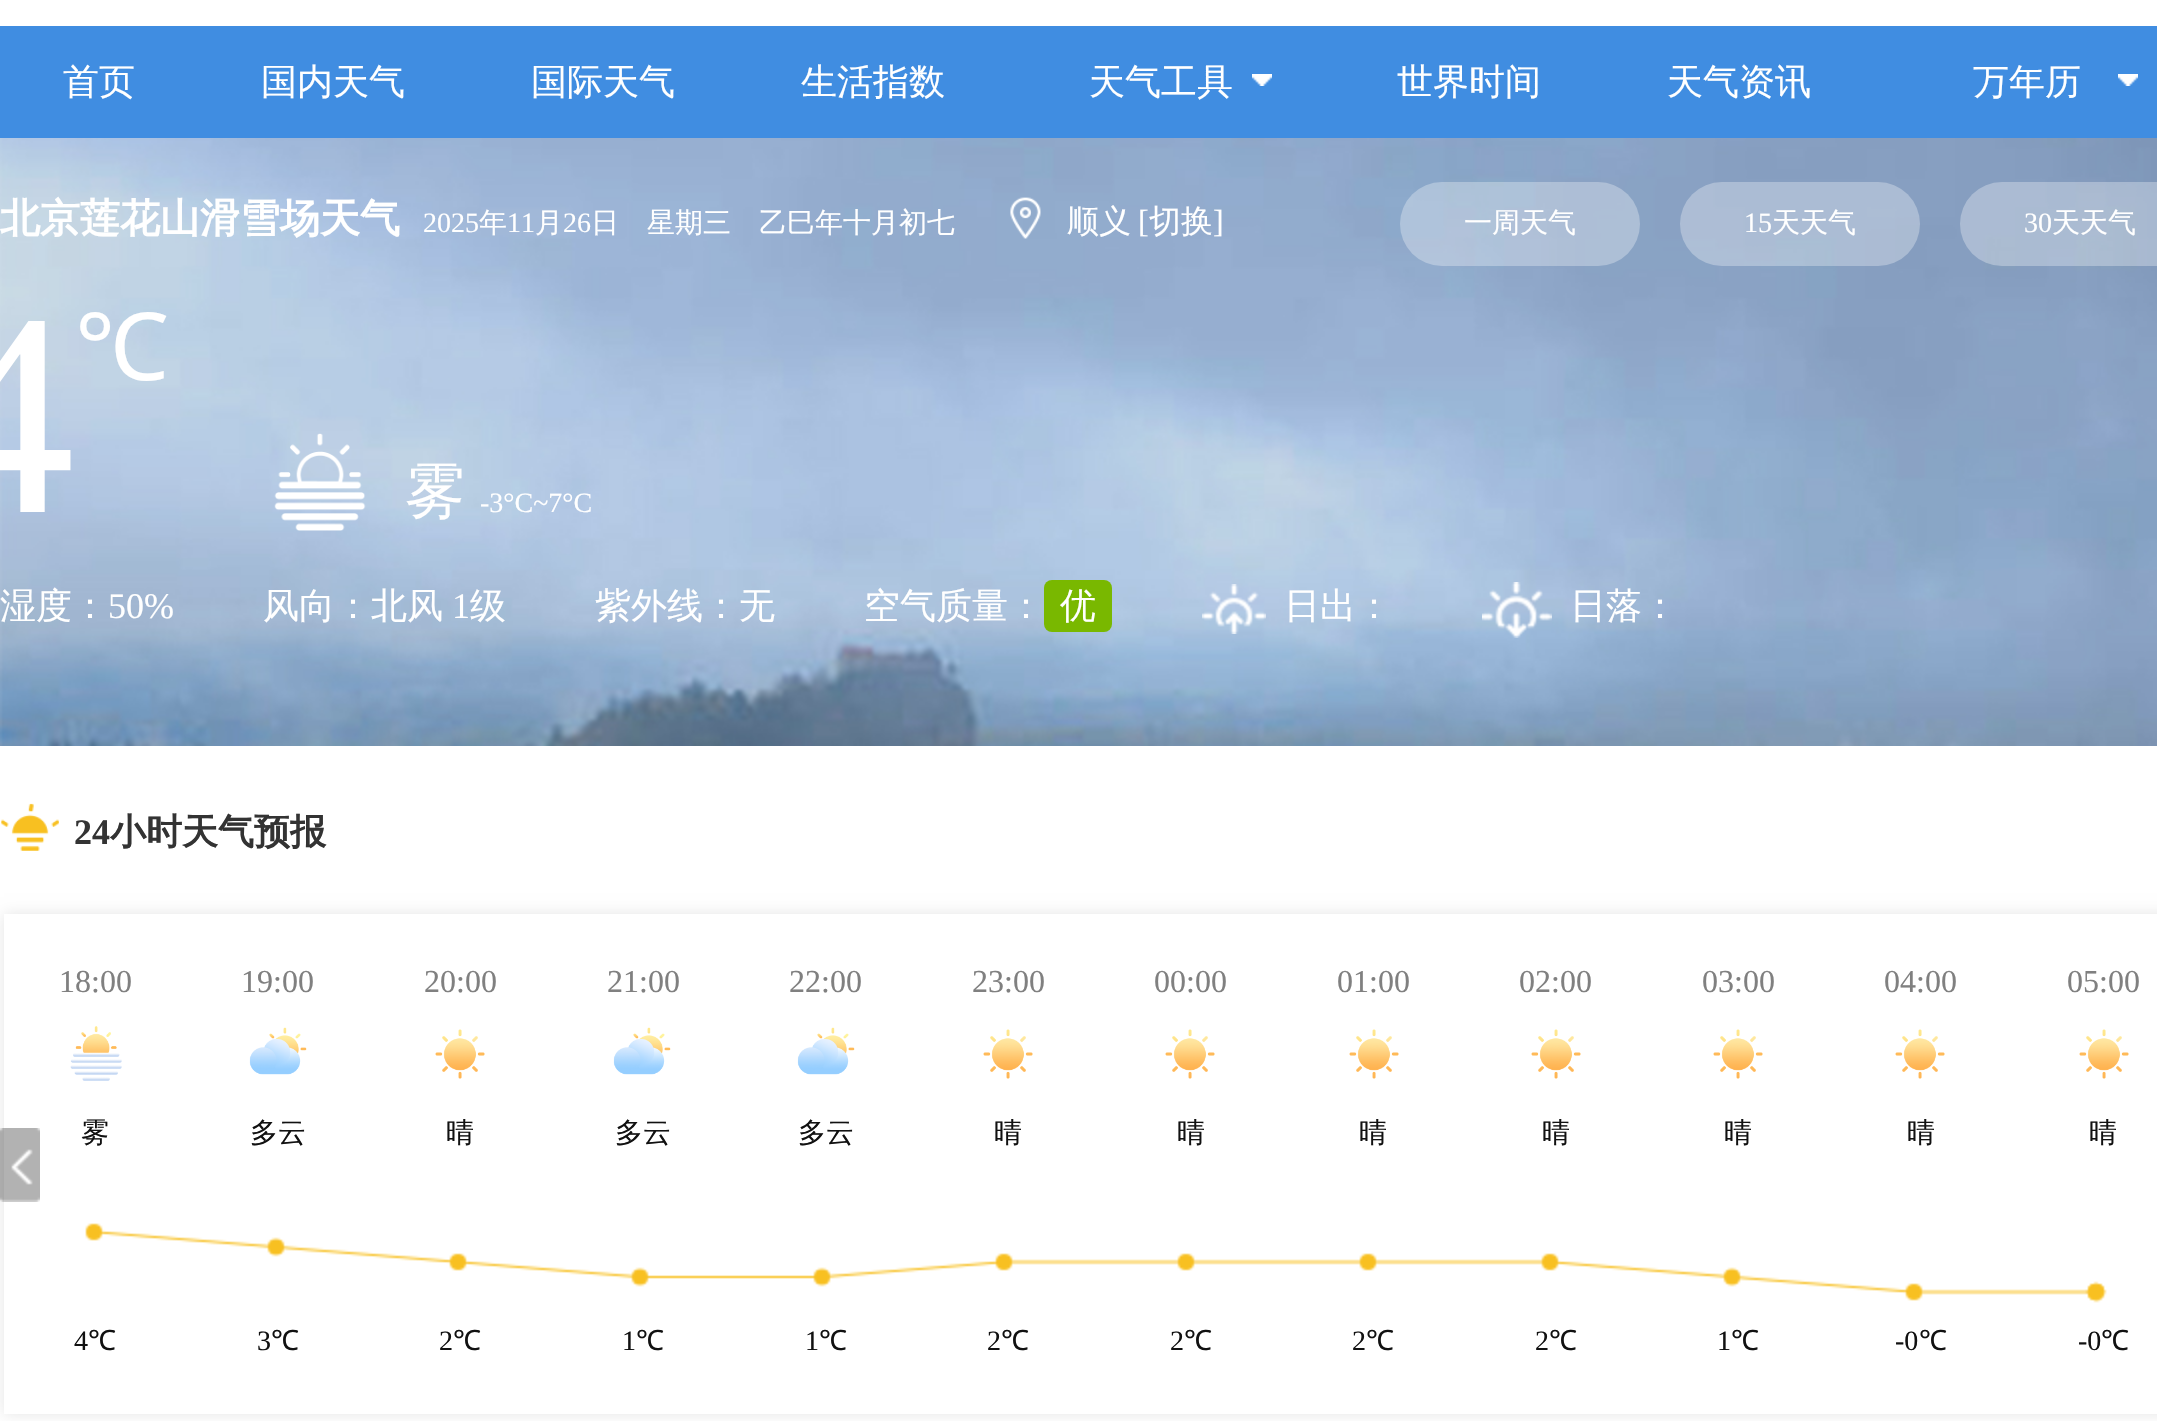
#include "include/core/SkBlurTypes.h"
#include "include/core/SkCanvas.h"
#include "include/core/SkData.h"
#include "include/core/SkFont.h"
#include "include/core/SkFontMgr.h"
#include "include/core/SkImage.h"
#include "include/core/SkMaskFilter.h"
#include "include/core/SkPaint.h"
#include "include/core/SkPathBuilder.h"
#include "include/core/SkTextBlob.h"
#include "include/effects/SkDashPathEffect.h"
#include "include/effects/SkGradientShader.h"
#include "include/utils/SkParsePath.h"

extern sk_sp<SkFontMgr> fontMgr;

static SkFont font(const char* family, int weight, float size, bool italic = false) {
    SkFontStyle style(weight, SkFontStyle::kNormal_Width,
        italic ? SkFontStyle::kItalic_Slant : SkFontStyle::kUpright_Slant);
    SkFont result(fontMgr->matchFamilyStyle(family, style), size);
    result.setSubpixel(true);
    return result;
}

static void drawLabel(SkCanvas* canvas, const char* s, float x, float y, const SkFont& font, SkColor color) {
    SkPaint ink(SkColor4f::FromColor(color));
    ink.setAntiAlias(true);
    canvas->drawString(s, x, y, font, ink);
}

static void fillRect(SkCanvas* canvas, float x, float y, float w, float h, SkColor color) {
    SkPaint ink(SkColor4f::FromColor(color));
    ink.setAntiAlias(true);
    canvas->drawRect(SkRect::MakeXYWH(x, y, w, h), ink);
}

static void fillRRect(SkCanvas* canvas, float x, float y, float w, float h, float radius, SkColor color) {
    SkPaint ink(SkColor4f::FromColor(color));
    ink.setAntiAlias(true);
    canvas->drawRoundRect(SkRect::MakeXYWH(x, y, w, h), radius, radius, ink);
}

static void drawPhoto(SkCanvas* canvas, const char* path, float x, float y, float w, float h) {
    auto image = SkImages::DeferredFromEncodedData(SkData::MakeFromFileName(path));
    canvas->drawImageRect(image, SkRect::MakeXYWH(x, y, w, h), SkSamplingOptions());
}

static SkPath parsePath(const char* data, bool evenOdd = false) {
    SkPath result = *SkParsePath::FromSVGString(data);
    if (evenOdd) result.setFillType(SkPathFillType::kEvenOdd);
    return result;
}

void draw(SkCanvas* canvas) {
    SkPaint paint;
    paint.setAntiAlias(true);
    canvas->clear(0xFFFFFFFF);
    drawPhoto(canvas, "assets/img1.png", 0, 138, 2157, 608);
    fillRect(canvas, 0, 26, 2157, 112, 0xFF408DE1);
    SkFont font1 = font("WenQuanYi Zen Hei", 500, 36);
    drawLabel(canvas, "首页", 63, 94, font1, 0xFFFFFFFF);
    drawLabel(canvas, "国内天气", 261, 94, font1, 0xFFFFFFFF);
    drawLabel(canvas, "国际天气", 531, 94, font1, 0xFFFFFFFF);
    drawLabel(canvas, "生活指数", 801, 94, font1, 0xFFFFFFFF);
    drawLabel(canvas, "天气工具", 1089, 94, font1, 0xFFFFFFFF);
    drawPhoto(canvas, "assets/img2.png", 1252, 74, 20, 12);
    drawLabel(canvas, "世界时间", 1397, 94, font1, 0xFFFFFFFF);
    drawLabel(canvas, "天气资讯", 1667, 94, font1, 0xFFFFFFFF);
    drawLabel(canvas, "万年历", 1973, 94, font1, 0xFFFFFFFF);
    drawPhoto(canvas, "assets/img2.png", 2118, 74, 20, 12);
    SkFont font2 = font("WenQuanYi Zen Hei", 700, 40);
    drawLabel(canvas, "北京莲花山滑雪场天气", 0, 232, font2, 0xFFFFFFFF);
    SkFont font3 = font("Liberation Serif", 400, 28);
    drawLabel(canvas, "2025", 423, 232, font3, 0xFFFFFFFF);
    SkFont font4 = font("WenQuanYi Zen Hei", 500, 28);
    drawLabel(canvas, "年", 479, 232, font4, 0xFFFFFFFF);
    drawLabel(canvas, "11", 507, 232, font3, 0xFFFFFFFF);
    drawLabel(canvas, "月", 535, 232, font4, 0xFFFFFFFF);
    drawLabel(canvas, "26", 563, 232, font3, 0xFFFFFFFF);
    drawLabel(canvas, "日　星期三　乙巳年十月初七", 591, 232, font4, 0xFFFFFFFF);
    drawPhoto(canvas, "assets/img3.png", 1010, 197, 31, 42);
    SkFont font5 = font("WenQuanYi Zen Hei", 500, 32);
    drawLabel(canvas, "顺义", 1067, 232, font5, 0xFFFFFFFF);
    SkFont font6 = font("Liberation Serif", 400, 32);
    drawLabel(canvas, "[", 1138, 232, font6, 0xFFFFFFFF);
    drawLabel(canvas, "切换", 1149, 232, font5, 0xFFFFFFFF);
    drawLabel(canvas, "]", 1213, 232, font6, 0xFFFFFFFF);
    fillRRect(canvas, 1400, 182, 240, 84, 42, 0x4DFFFFFF);
    drawLabel(canvas, "一周天气", 1464, 232, font4, 0xFFFFFFFF);
    fillRRect(canvas, 1680, 182, 240, 84, 42, 0x4DFFFFFF);
    drawLabel(canvas, "15", 1744, 232, font3, 0xFFFFFFFF);
    drawLabel(canvas, "天天气", 1772, 232, font4, 0xFFFFFFFF);
    fillRRect(canvas, 1960, 182, 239, 84, 42, 0x4DFFFFFF);
    drawLabel(canvas, "30", 2024, 232, font3, 0xFFFFFFFF);
    drawLabel(canvas, "天天气", 2052, 232, font4, 0xFFFFFFFF);
    SkFont font7 = font("Liberation Serif", 400, 290);
    drawLabel(canvas, "4", -70, 512, font7, 0xFFFFFFFF);
    SkFont font8 = font("Noto Sans", 400, 94);
    drawLabel(canvas, "℃", 75, 380, font8, 0xFFFFFFFF);
    drawPhoto(canvas, "assets/img4.png", 274, 433, 92, 98);
    SkFont font9 = font("WenQuanYi Zen Hei", 500, 60);
    drawLabel(canvas, "雾", 405, 512, font9, 0xFFFFFFFF);
    drawLabel(canvas, "-3°C~7°C", 480, 512, font3, 0xFFFFFFFF);
    drawLabel(canvas, "湿度：", 0, 618, font1, 0xFFFFFFFF);
    SkFont font10 = font("Liberation Serif", 400, 36);
    drawLabel(canvas, "50%", 108, 618, font10, 0xFFFFFFFF);
    drawLabel(canvas, "风向：北风", 263, 618, font1, 0xFFFFFFFF);
    drawLabel(canvas, "1", 452, 618, font10, 0xFFFFFFFF);
    drawLabel(canvas, "级", 470, 618, font1, 0xFFFFFFFF);
    drawLabel(canvas, "紫外线：无", 595, 618, font1, 0xFFFFFFFF);
    drawLabel(canvas, "空气质量：", 864, 618, font1, 0xFFFFFFFF);
    fillRRect(canvas, 1044, 580, 68, 52, 8, 0xFF79B800);
    drawLabel(canvas, "优", 1060, 618, font1, 0xFFFFFFFF);
    drawPhoto(canvas, "assets/img5.png", 1202, 584, 64, 50);
    drawLabel(canvas, "日出：", 1284, 618, font1, 0xFFFFFFFF);
    drawPhoto(canvas, "assets/img6.png", 1482, 582, 70, 56);
    drawLabel(canvas, "日落：", 1570, 618, font1, 0xFFFFFFFF);
    drawPhoto(canvas, "assets/img7.png", 1, 803, 58, 48);
    SkFont font11 = font("Liberation Serif", 700, 36);
    drawLabel(canvas, "24", 74, 844, font11, 0xFF333333);
    SkFont font12 = font("WenQuanYi Zen Hei", 700, 36);
    drawLabel(canvas, "小时天气预报", 110, 844, font12, 0xFF333333);
    canvas->save();
    canvas->clipPath(parsePath("M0 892H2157V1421H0ZM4 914H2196V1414H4Z", true), true);
    paint.setColor(0x1A000000);
    paint.setMaskFilter(SkMaskFilter::MakeBlur(kNormal_SkBlurStyle, 7));
    canvas->drawRect(SkRect::MakeXYWH(4, 914, 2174, 500), paint);
    paint.setMaskFilter(nullptr);
    canvas->restore();
    drawPhoto(canvas, "assets/img8.png", 0, 1128, 40, 74);
    drawLabel(canvas, "18:00", 59, 992, font6, 0xFF808080);
    drawLabel(canvas, "19:00", 241, 992, font6, 0xFF808080);
    drawLabel(canvas, "20:00", 424, 992, font6, 0xFF808080);
    drawLabel(canvas, "21:00", 607, 992, font6, 0xFF808080);
    drawLabel(canvas, "22:00", 789, 992, font6, 0xFF808080);
    drawLabel(canvas, "23:00", 972, 992, font6, 0xFF808080);
    drawLabel(canvas, "00:00", 1154, 992, font6, 0xFF808080);
    drawLabel(canvas, "01:00", 1337, 992, font6, 0xFF808080);
    drawLabel(canvas, "02:00", 1519, 992, font6, 0xFF808080);
    drawLabel(canvas, "03:00", 1702, 992, font6, 0xFF808080);
    drawLabel(canvas, "04:00", 1884, 992, font6, 0xFF808080);
    drawLabel(canvas, "05:00", 2067, 992, font6, 0xFF808080);
    drawPhoto(canvas, "assets/img9.png", 70, 1026, 52, 55);
    drawPhoto(canvas, "assets/img10.png", 249, 1027, 58, 48);
    drawPhoto(canvas, "assets/img11.png", 435, 1029, 50, 50);
    drawPhoto(canvas, "assets/img10.png", 613, 1027, 58, 48);
    drawPhoto(canvas, "assets/img10.png", 797, 1027, 58, 48);
    drawPhoto(canvas, "assets/img11.png", 983, 1029, 50, 50);
    drawPhoto(canvas, "assets/img11.png", 1165, 1029, 50, 50);
    drawPhoto(canvas, "assets/img11.png", 1349, 1029, 50, 50);
    drawPhoto(canvas, "assets/img11.png", 1531, 1029, 50, 50);
    drawPhoto(canvas, "assets/img11.png", 1713, 1029, 50, 50);
    drawPhoto(canvas, "assets/img11.png", 1895, 1029, 50, 50);
    drawPhoto(canvas, "assets/img11.png", 2079, 1029, 50, 50);
    drawLabel(canvas, "雾", 81, 1142, font4, 0xFF111111);
    drawLabel(canvas, "多云", 250, 1142, font4, 0xFF111111);
    drawLabel(canvas, "晴", 446, 1142, font4, 0xFF111111);
    drawLabel(canvas, "多云", 615, 1142, font4, 0xFF111111);
    drawLabel(canvas, "多云", 798, 1142, font4, 0xFF111111);
    drawLabel(canvas, "晴", 994, 1142, font4, 0xFF111111);
    drawLabel(canvas, "晴", 1177, 1142, font4, 0xFF111111);
    drawLabel(canvas, "晴", 1359, 1142, font4, 0xFF111111);
    drawLabel(canvas, "晴", 1542, 1142, font4, 0xFF111111);
    drawLabel(canvas, "晴", 1724, 1142, font4, 0xFF111111);
    drawLabel(canvas, "晴", 1907, 1142, font4, 0xFF111111);
    drawLabel(canvas, "晴", 2089, 1142, font4, 0xFF111111);
    drawPhoto(canvas, "assets/img12.png", 85, 1223, 2022, 80);
    drawLabel(canvas, "4", 74, 1350, font3, 0xFF111111);
    SkFont font13 = font("Noto Sans", 400, 28);
    drawLabel(canvas, "℃", 88, 1350, font13, 0xFF111111);
    drawLabel(canvas, "3", 257, 1350, font3, 0xFF111111);
    drawLabel(canvas, "℃", 271, 1350, font13, 0xFF111111);
    drawLabel(canvas, "2", 439, 1350, font3, 0xFF111111);
    drawLabel(canvas, "℃", 453, 1350, font13, 0xFF111111);
    drawLabel(canvas, "1", 622, 1350, font3, 0xFF111111);
    drawLabel(canvas, "℃", 636, 1350, font13, 0xFF111111);
    drawLabel(canvas, "1", 805, 1350, font3, 0xFF111111);
    drawLabel(canvas, "℃", 819, 1350, font13, 0xFF111111);
    drawLabel(canvas, "2", 987, 1350, font3, 0xFF111111);
    drawLabel(canvas, "℃", 1001, 1350, font13, 0xFF111111);
    drawLabel(canvas, "2", 1170, 1350, font3, 0xFF111111);
    drawLabel(canvas, "℃", 1184, 1350, font13, 0xFF111111);
    drawLabel(canvas, "2", 1352, 1350, font3, 0xFF111111);
    drawLabel(canvas, "℃", 1366, 1350, font13, 0xFF111111);
    drawLabel(canvas, "2", 1535, 1350, font3, 0xFF111111);
    drawLabel(canvas, "℃", 1549, 1350, font13, 0xFF111111);
    drawLabel(canvas, "1", 1717, 1350, font3, 0xFF111111);
    drawLabel(canvas, "℃", 1731, 1350, font13, 0xFF111111);
    drawLabel(canvas, "-0", 1895, 1350, font3, 0xFF111111);
    drawLabel(canvas, "℃", 1919, 1350, font13, 0xFF111111);
    drawLabel(canvas, "-0", 2078, 1350, font3, 0xFF111111);
    drawLabel(canvas, "℃", 2101, 1350, font13, 0xFF111111);
}
